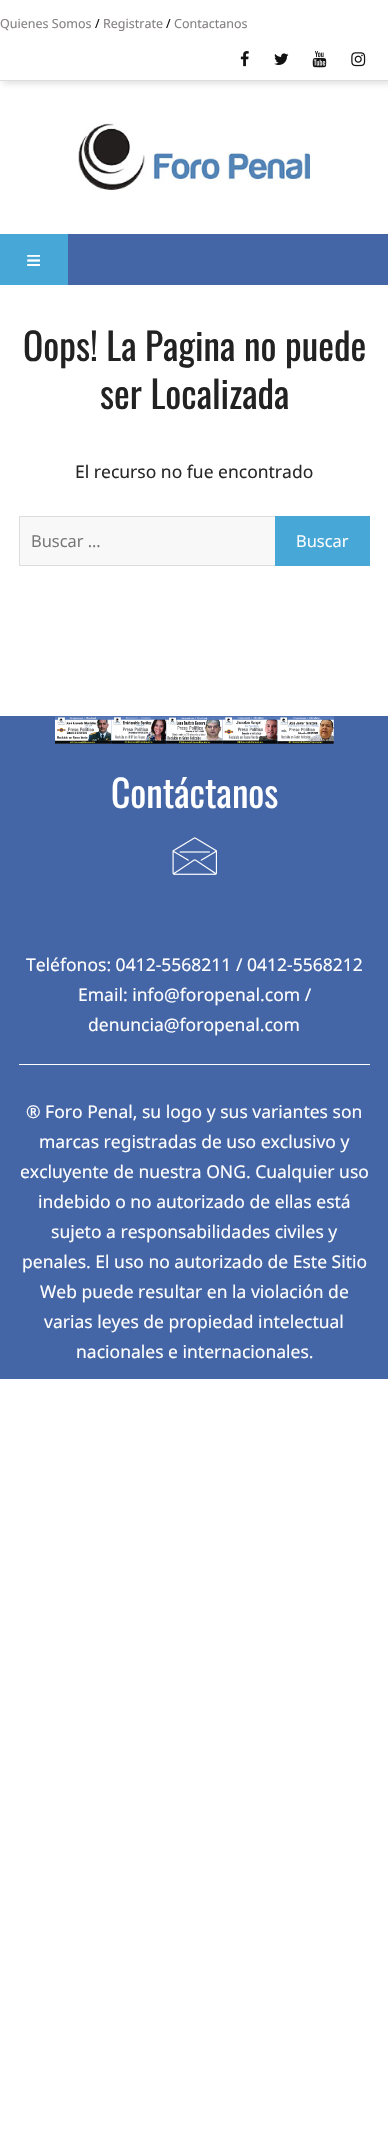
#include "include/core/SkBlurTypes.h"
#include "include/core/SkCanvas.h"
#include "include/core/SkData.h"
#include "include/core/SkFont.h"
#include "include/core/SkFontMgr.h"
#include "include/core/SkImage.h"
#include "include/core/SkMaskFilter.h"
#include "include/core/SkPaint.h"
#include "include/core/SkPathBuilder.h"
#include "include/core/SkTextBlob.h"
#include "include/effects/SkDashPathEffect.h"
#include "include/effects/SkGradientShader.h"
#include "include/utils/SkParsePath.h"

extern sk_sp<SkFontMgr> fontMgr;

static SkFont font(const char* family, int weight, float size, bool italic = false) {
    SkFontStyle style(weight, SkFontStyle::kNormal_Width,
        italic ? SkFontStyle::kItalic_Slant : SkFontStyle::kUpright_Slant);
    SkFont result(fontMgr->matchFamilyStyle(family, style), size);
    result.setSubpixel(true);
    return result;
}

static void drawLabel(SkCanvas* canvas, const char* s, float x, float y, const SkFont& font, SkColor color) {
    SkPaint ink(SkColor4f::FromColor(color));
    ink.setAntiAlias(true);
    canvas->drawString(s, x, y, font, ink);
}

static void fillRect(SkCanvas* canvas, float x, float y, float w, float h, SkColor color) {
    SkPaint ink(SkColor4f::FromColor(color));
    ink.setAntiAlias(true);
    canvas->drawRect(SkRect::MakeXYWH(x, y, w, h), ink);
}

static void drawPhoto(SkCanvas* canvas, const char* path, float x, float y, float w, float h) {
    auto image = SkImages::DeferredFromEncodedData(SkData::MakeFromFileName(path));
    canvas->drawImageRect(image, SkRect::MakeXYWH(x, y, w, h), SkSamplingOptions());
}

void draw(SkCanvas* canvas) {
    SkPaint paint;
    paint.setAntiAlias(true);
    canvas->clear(0xFFFFFFFF);
    canvas->save();
    canvas->clipRect(SkRect::MakeXYWH(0, 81, 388, 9));
    paint.setColor(0xFFE3E3E3);
    paint.setMaskFilter(SkMaskFilter::MakeBlur(kNormal_SkBlurStyle, 3));
    canvas->drawRect(SkRect::MakeXYWH(3, 3, 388, 81), paint);
    paint.setMaskFilter(nullptr);
    canvas->restore();
    fillRect(canvas, 0, 80, 388, 1, 0xFFDDDDDD);
    SkFont font1 = font("Noto Sans", 400, 12.5f);
    drawLabel(canvas, "Quienes Somos", 0, 28, font1, 0xFF858181);
    drawLabel(canvas, "/", 95, 28, font1, 0xFF111111);
    drawLabel(canvas, "Registrate", 103, 28, font1, 0xFF858181);
    drawLabel(canvas, "/", 166, 28, font1, 0xFF111111);
    drawLabel(canvas, "Contactanos", 174, 28, font1, 0xFF858181);
    drawPhoto(canvas, "assets/img1.png", 240, 51, 9, 16);
    drawPhoto(canvas, "assets/img2.png", 274, 53, 15, 12);
    drawPhoto(canvas, "assets/img3.png", 312, 51, 15, 17);
    drawPhoto(canvas, "assets/img4.png", 351, 52, 15, 15);
    drawPhoto(canvas, "assets/img5.png", 78, 123, 232, 67);
    fillRect(canvas, 68, 234, 320, 51, 0xFF4465A6);
    fillRect(canvas, 0, 234, 68, 51, 0xFF47A7D7);
    SkFont font2 = font("Liberation Sans", 400, 26);
    drawLabel(canvas, "≡", 26, 269, font2, 0xFFFFFFFF);
    SkFont font3 = font("Oswald", 400, 37.5f);
    drawLabel(canvas, "Oops! La Pagina no puede", 23, 361, font3, 0xFF222222);
    drawLabel(canvas, "ser Localizada", 100, 409, font3, 0xFF222222);
    SkFont font4 = font("Noto Sans", 400, 17.5f);
    drawLabel(canvas, "El recurso no fue encontrado", 75, 478, font4, 0xFF282828);
    fillRect(canvas, 20, 517, 255, 48, 0xFFF8F8F8);
    paint.setStroke(true);
    paint.setStrokeWidth(1);
    paint.setColor(0xFFDDDDDD);
    canvas->drawRect(SkRect::MakeXYWH(19.5f, 516.5f, 350, 49), paint);
    SkFont font5 = font("Open Sans", 400, 16.5f);
    drawLabel(canvas, "Buscar …", 31, 547, font5, 0xFF757575);
    fillRect(canvas, 275, 516, 95, 50, 0xFF47A7D7);
    drawLabel(canvas, "Buscar", 296, 547, font5, 0xFFFFFFFF);
    fillRect(canvas, 0, 716, 388, 663, 0xFF4465A6);
    drawPhoto(canvas, "assets/img6.png", 55, 716, 57, 28);
    drawPhoto(canvas, "assets/img7.png", 111, 716, 56, 28);
    drawPhoto(canvas, "assets/img8.png", 166, 716, 57, 28);
    drawPhoto(canvas, "assets/img9.png", 222, 716, 56, 28);
    drawPhoto(canvas, "assets/img10.png", 277, 716, 57, 28);
    drawLabel(canvas, "Contáctanos", 111, 808, font3, 0xFFFFFFFF);
    drawPhoto(canvas, "assets/img11.png", 172, 837, 45, 38);
    drawLabel(canvas, "Teléfonos: 0412-5568211 / 0412-5568212", 26, 971, font4, 0xFFFFFFFF);
    drawLabel(canvas, "Email: info@foropenal.com /", 78, 1001, font4, 0xFFFFFFFF);
    drawLabel(canvas, "denuncia@foropenal.com", 88, 1031, font4, 0xFFFFFFFF);
    fillRect(canvas, 19, 1064, 351, 1, 0xFFFFFFFF);
    drawLabel(canvas, "® Foro Penal, su logo y sus variantes son", 26, 1118, font4, 0xFFFFFFFF);
    drawLabel(canvas, "marcas registradas de uso exclusivo y", 39, 1148, font4, 0xFFFFFFFF);
    drawLabel(canvas, "excluyente de nuestra ONG. Cualquier uso", 20, 1178, font4, 0xFFFFFFFF);
    drawLabel(canvas, "indebido o no autorizado de ellas está", 38, 1208, font4, 0xFFFFFFFF);
    drawLabel(canvas, "sujeto a responsabilidades civiles y", 51, 1238, font4, 0xFFFFFFFF);
    drawLabel(canvas, "penales. El uso no autorizado de Este Sitio", 22, 1268, font4, 0xFFFFFFFF);
    drawLabel(canvas, "Web puede resultar en la violación de", 40, 1298, font4, 0xFFFFFFFF);
    drawLabel(canvas, "varias leyes de propiedad intelectual", 44, 1328, font4, 0xFFFFFFFF);
    drawLabel(canvas, "nacionales e internacionales.", 76, 1358, font4, 0xFFFFFFFF);
}
